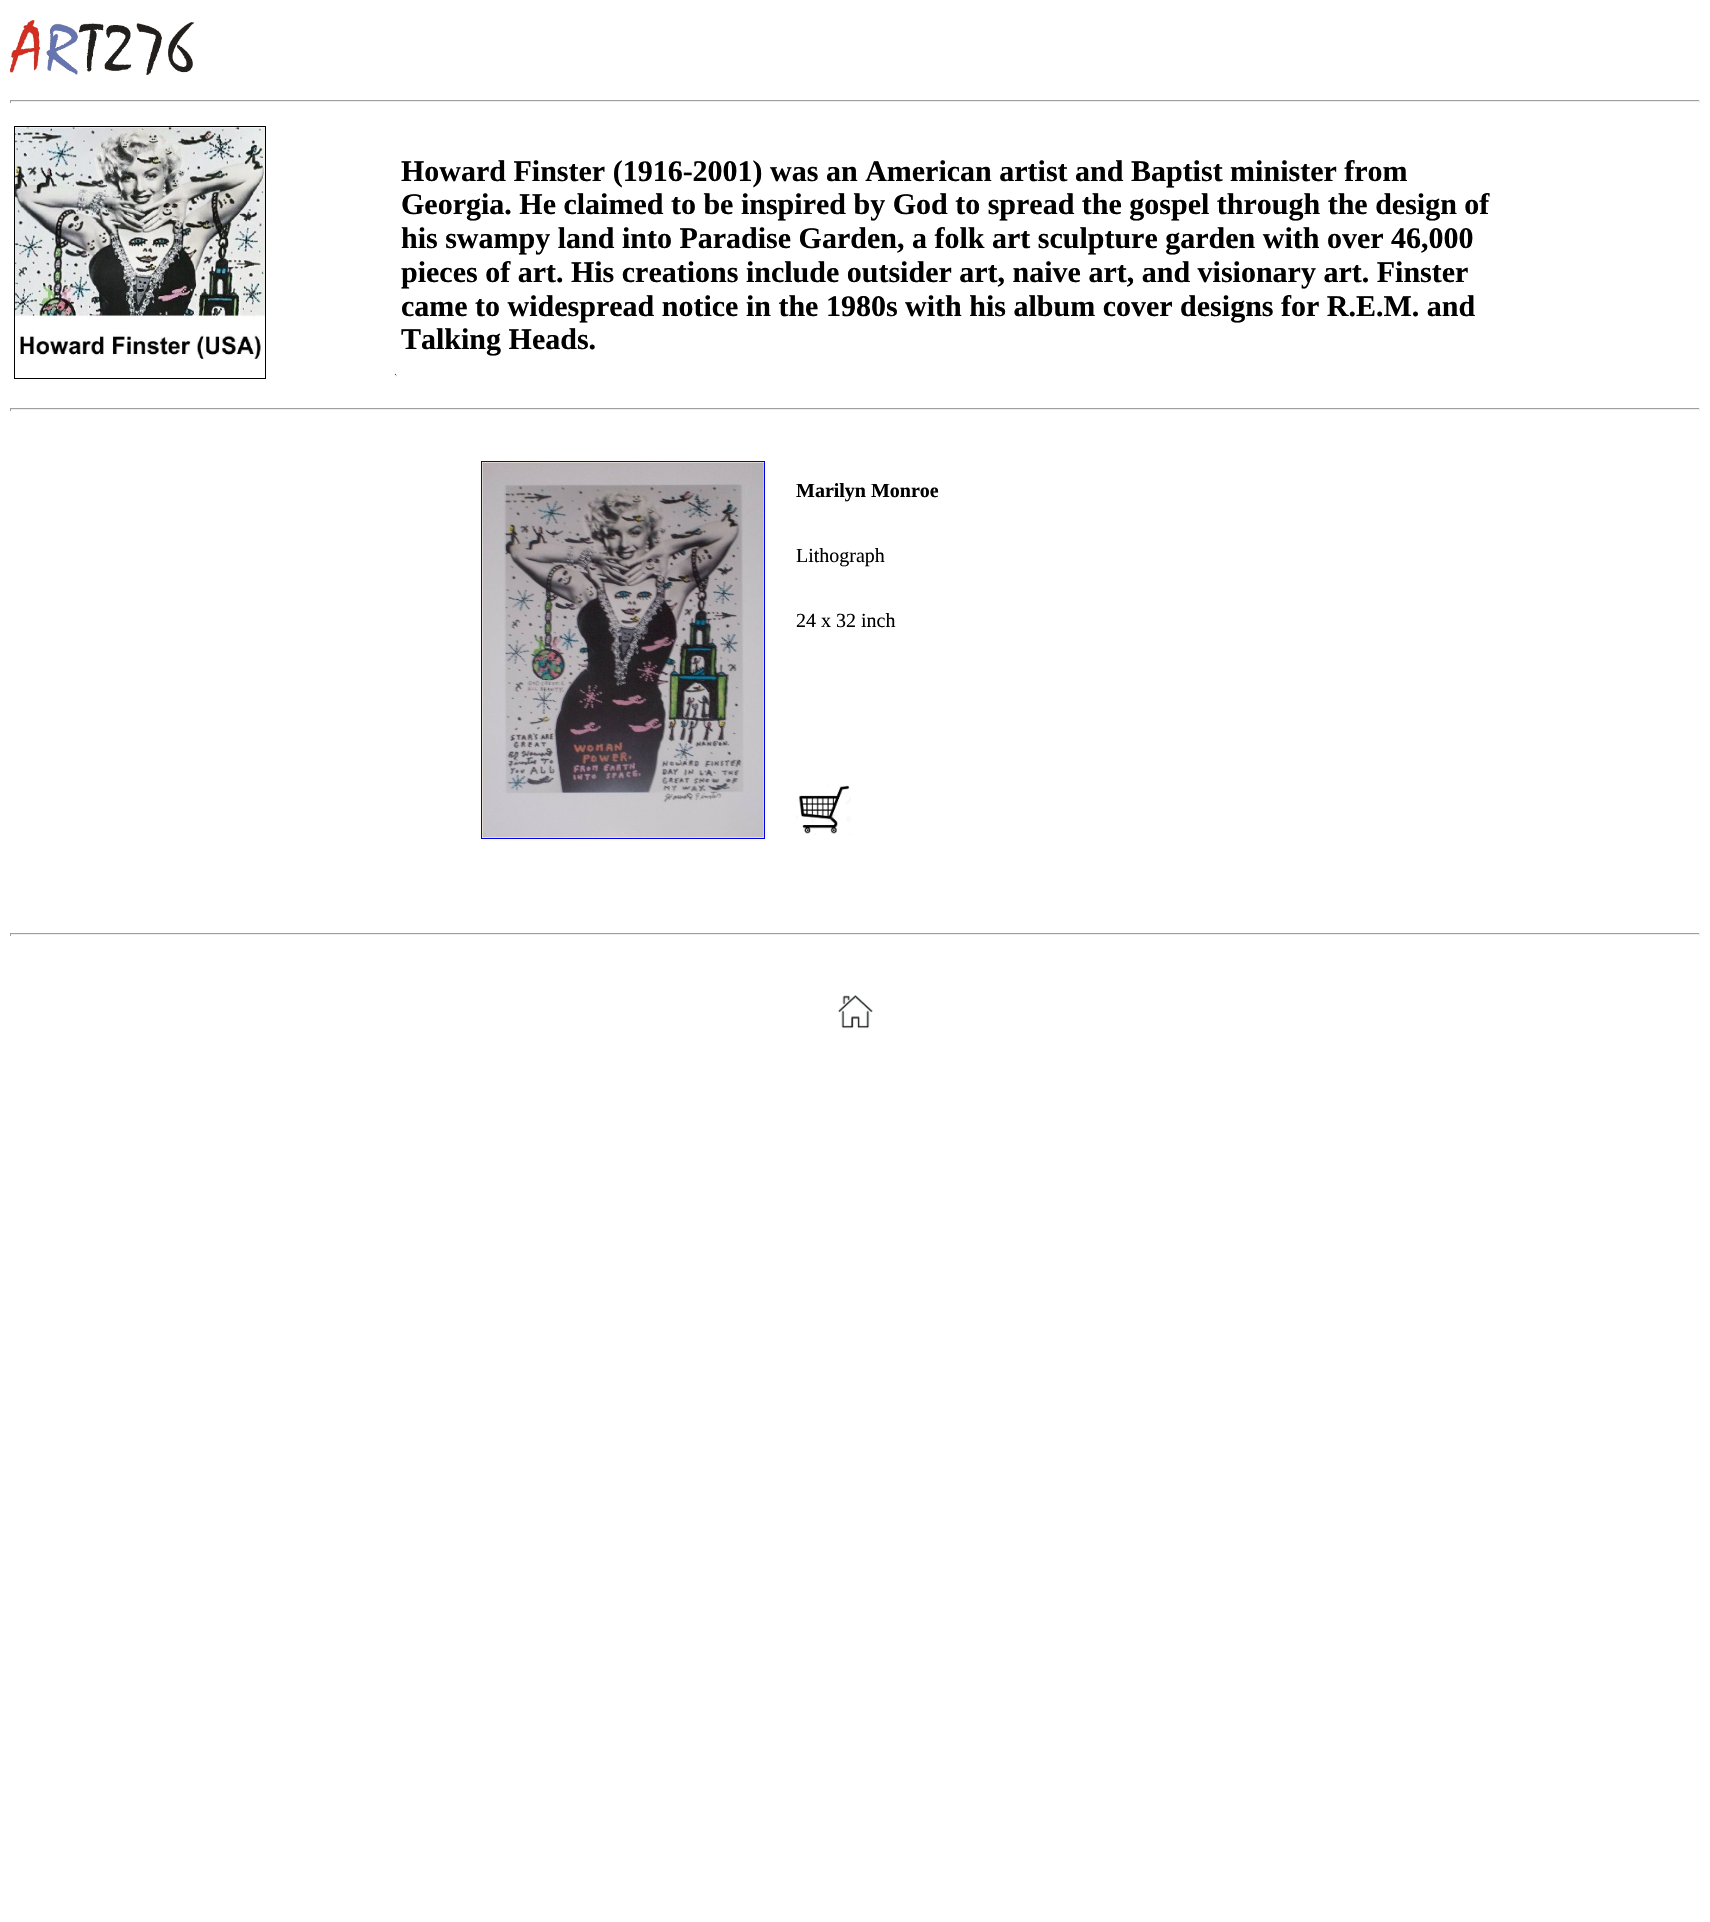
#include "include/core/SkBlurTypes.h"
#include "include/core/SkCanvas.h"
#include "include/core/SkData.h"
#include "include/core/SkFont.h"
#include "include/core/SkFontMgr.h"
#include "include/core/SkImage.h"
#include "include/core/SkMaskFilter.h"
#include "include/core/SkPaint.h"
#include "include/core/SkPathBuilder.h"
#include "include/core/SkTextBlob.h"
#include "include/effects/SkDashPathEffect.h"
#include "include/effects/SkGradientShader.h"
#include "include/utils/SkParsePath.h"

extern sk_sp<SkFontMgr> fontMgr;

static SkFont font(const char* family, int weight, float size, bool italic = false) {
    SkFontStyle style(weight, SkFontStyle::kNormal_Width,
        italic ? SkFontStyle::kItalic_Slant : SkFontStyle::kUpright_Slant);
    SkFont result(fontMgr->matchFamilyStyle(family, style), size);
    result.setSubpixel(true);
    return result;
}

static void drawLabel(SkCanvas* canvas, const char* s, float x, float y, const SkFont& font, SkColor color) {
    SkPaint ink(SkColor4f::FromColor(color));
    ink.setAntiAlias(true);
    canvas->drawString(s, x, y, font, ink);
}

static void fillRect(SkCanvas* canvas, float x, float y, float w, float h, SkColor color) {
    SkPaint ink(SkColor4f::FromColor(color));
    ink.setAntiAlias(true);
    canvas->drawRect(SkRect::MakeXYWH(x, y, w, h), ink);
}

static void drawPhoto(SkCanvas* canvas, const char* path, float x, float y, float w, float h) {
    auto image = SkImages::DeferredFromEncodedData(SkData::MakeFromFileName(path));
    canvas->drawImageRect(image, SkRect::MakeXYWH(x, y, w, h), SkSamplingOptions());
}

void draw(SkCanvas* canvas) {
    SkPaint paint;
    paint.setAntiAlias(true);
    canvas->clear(0xFFFFFFFF);
    drawPhoto(canvas, "assets/img1.png", 10, 20, 185, 55);
    fillRect(canvas, 10, 100, 1690, 1, 0xFF9F9F9F);
    fillRect(canvas, 1699, 100, 1, 3, 0xFFEEEEEE);
    fillRect(canvas, 10, 101, 1690, 1, 0xFFEEEEEE);
    fillRect(canvas, 10, 100, 1, 3, 0xFF9F9F9F);
    paint.setStroke(true);
    paint.setStrokeWidth(1);
    paint.setColor(0xFF000000);
    canvas->drawRect(SkRect::MakeXYWH(14.5f, 126.5f, 251, 252), paint);
    drawPhoto(canvas, "assets/img2.png", 15, 127, 250, 232);
    SkFont font1 = font("Liberation Serif", 700, 30);
    drawLabel(canvas, "Howard Finster (1916-2001) was an American artist and Baptist minister from", 401, 181, font1, 0xFF000000);
    drawLabel(canvas, "Georgia. He claimed to be inspired by God to spread the gospel through the design of", 401, 214, font1, 0xFF000000);
    drawLabel(canvas, "his swampy land into Paradise Garden, a folk art sculpture garden with over 46,000", 401, 248, font1, 0xFF000000);
    drawLabel(canvas, "pieces of art. His creations include outsider art, naive art, and visionary art. Finster", 401, 282, font1, 0xFF000000);
    drawLabel(canvas, "came to widespread notice in the 1980s with his album cover designs for R.E.M. and", 401, 316, font1, 0xFF000000);
    drawLabel(canvas, "Talking Heads.", 401, 349, font1, 0xFF000000);
    drawPhoto(canvas, "assets/img3.png", 393, 370, 4, 8);
    fillRect(canvas, 10, 408, 1690, 1, 0xFF9F9F9F);
    fillRect(canvas, 1699, 408, 1, 3, 0xFFEEEEEE);
    fillRect(canvas, 10, 409, 1690, 1, 0xFFEEEEEE);
    fillRect(canvas, 10, 408, 1, 3, 0xFF9F9F9F);
    paint.setColor(0xFF0000EE);
    canvas->drawRect(SkRect::MakeXYWH(481.5f, 461.5f, 283, 377), paint);
    drawPhoto(canvas, "assets/img4.png", 482, 462, 282, 376);
    SkFont font2 = font("Liberation Serif", 700, 20);
    drawLabel(canvas, "Marilyn Monroe", 796, 497, font2, 0xFF000000);
    SkFont font3 = font("Liberation Serif", 400, 20);
    drawLabel(canvas, "Lithograph", 796, 562, font3, 0xFF000000);
    drawLabel(canvas, "24 x 32 inch", 796, 627, font3, 0xFF000000);
    drawPhoto(canvas, "assets/img5.png", 796, 785, 55, 50);
    fillRect(canvas, 10, 933, 1690, 1, 0xFF9F9F9F);
    fillRect(canvas, 1699, 933, 1, 3, 0xFFEEEEEE);
    fillRect(canvas, 10, 934, 1690, 1, 0xFFEEEEEE);
    fillRect(canvas, 10, 933, 1, 3, 0xFF9F9F9F);
    drawPhoto(canvas, "assets/img6.png", 837, 995, 36, 34);
}
